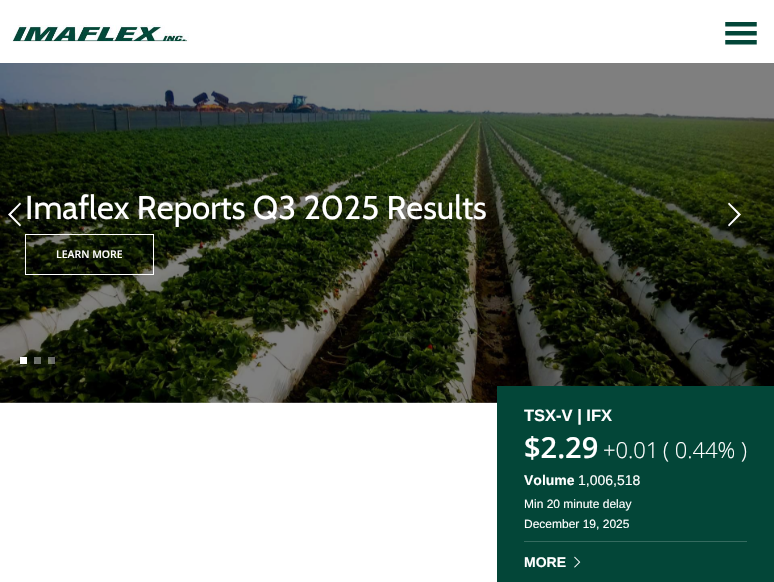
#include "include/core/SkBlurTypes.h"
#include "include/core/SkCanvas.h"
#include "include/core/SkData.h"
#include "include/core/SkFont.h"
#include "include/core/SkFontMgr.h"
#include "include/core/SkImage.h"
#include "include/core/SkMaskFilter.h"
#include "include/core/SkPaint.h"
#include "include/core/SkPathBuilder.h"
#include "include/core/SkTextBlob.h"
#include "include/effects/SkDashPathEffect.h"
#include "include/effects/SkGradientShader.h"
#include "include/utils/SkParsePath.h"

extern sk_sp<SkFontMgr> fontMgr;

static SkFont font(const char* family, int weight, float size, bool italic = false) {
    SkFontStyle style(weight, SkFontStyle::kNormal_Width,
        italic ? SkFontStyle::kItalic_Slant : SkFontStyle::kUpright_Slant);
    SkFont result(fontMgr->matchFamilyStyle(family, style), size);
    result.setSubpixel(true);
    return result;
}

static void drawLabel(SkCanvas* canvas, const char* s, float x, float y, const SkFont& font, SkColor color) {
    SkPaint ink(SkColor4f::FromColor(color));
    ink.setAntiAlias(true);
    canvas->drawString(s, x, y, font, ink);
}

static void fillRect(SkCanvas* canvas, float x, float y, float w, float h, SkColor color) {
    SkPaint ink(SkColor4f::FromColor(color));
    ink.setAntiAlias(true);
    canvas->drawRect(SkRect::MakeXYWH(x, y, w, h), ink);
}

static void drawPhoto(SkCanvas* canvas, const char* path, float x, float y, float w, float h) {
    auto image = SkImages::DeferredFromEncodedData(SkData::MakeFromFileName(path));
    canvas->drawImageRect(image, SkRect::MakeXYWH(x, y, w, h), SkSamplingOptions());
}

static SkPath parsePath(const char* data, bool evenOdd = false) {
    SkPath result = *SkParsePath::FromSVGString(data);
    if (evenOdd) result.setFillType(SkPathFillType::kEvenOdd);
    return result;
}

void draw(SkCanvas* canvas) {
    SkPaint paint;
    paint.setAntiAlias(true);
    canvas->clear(0xFFFFFFFF);
    drawPhoto(canvas, "assets/img1.png", 10, 25, 179, 17);
    drawPhoto(canvas, "assets/img2.png", 725, 22, 32, 23);
    drawPhoto(canvas, "assets/img3.png", 0, 63, 774, 340);
    paint.setColor(0xFFFFFFFF);
    canvas->drawPath(parsePath("M20 226.5L21 225L11 214.5L21 204L20 202.5L8 214.5Z"), paint);
    SkFont font1 = font("Cabin", 400, 33);
    drawLabel(canvas, "Imaflex Reports Q3 2025 Results", 25, 219, font1, 0xFFFFFFFF);
    paint.setStroke(true);
    paint.setStrokeWidth(1);
    canvas->drawRect(SkRect::MakeXYWH(25.5f, 234.5f, 128, 40), paint);
    SkFont font2 = font("Open Sans", 600, 10.5f);
    drawLabel(canvas, "LEARN MORE", 56, 258, font2, 0xFFFFFFFF);
    paint.setStroke(false);
    canvas->drawPath(parsePath("M729 202.5L728 204L738 214.5L728 225L729 226.5L741 214.5Z"), paint);
    fillRect(canvas, 20, 357, 7, 7, 0xFFFFFFFF);
    fillRect(canvas, 34, 357, 7, 7, 0x66FFFFFF);
    fillRect(canvas, 48, 357, 7, 7, 0x66FFFFFF);
    fillRect(canvas, 497, 386, 277, 196, 0xFF034638);
    SkFont font3 = font("Liberation Sans", 700, 16.5f);
    drawLabel(canvas, "TSX-V | IFX", 524, 421, font3, 0xFFFFFFFF);
    SkFont font4 = font("Open Sans", 600, 29);
    drawLabel(canvas, "$2.29", 524, 458, font4, 0xFFFFFFFF);
    SkFont font5 = font("Open Sans", 300, 22);
    drawLabel(canvas, "+0.01", 603, 458, font5, 0xFFFFFFFF);
    drawLabel(canvas, "( 0.44% )", 663, 458, font5, 0xFFFFFFFF);
    SkFont font6 = font("Liberation Sans", 700, 14);
    drawLabel(canvas, "Volume", 524, 485, font6, 0xFFFFFFFF);
    SkFont font7 = font("Liberation Sans", 400, 14);
    drawLabel(canvas, "1,006,518", 578, 485, font7, 0xFFFFFFFF);
    SkFont font8 = font("Liberation Sans", 400, 12);
    drawLabel(canvas, "Min 20 minute delay", 524, 508, font8, 0xFFFFFFFF);
    drawLabel(canvas, "December 19, 2025", 524, 528, font8, 0xFFFFFFFF);
    fillRect(canvas, 524, 541, 223, 1, 0xFF356B60);
    drawLabel(canvas, "MORE", 524, 567, font6, 0xFFFFFFFF);
    drawPhoto(canvas, "assets/img4.png", 574, 556, 7, 12);
}
